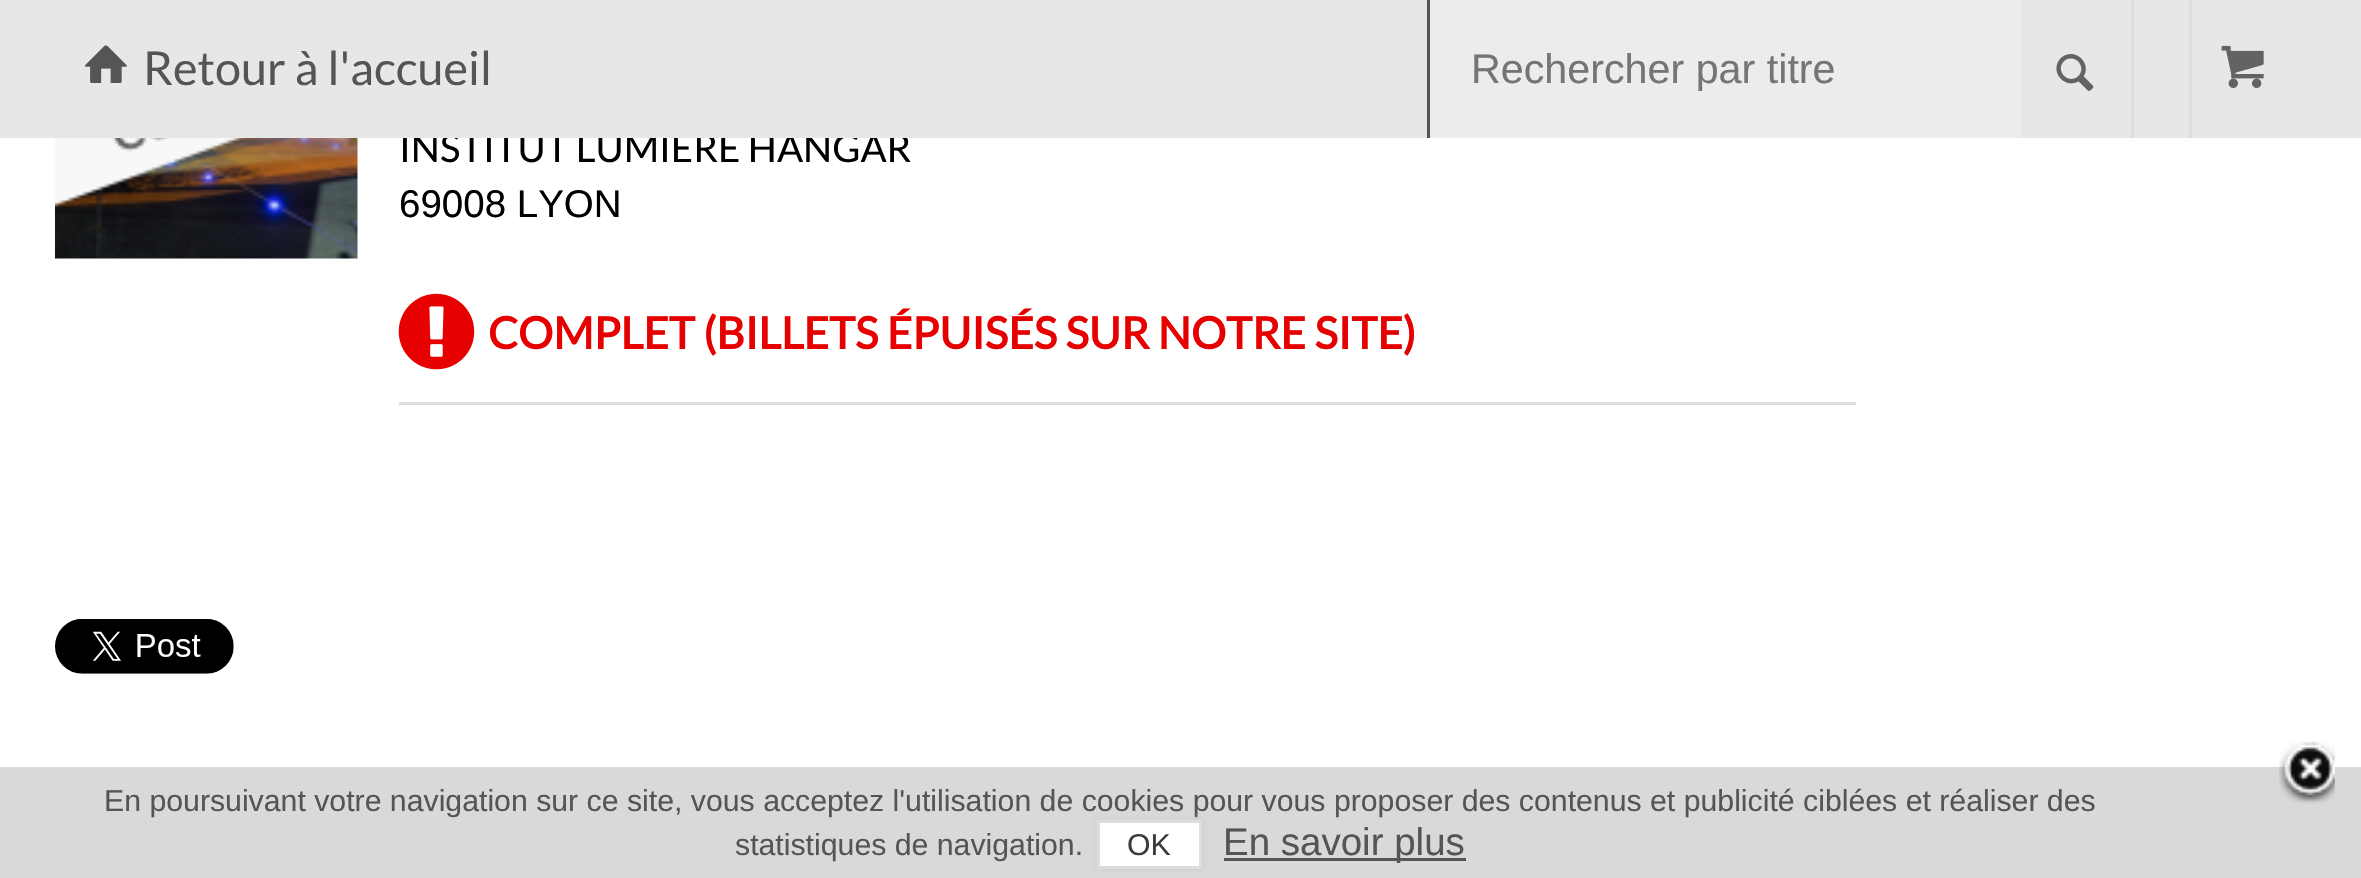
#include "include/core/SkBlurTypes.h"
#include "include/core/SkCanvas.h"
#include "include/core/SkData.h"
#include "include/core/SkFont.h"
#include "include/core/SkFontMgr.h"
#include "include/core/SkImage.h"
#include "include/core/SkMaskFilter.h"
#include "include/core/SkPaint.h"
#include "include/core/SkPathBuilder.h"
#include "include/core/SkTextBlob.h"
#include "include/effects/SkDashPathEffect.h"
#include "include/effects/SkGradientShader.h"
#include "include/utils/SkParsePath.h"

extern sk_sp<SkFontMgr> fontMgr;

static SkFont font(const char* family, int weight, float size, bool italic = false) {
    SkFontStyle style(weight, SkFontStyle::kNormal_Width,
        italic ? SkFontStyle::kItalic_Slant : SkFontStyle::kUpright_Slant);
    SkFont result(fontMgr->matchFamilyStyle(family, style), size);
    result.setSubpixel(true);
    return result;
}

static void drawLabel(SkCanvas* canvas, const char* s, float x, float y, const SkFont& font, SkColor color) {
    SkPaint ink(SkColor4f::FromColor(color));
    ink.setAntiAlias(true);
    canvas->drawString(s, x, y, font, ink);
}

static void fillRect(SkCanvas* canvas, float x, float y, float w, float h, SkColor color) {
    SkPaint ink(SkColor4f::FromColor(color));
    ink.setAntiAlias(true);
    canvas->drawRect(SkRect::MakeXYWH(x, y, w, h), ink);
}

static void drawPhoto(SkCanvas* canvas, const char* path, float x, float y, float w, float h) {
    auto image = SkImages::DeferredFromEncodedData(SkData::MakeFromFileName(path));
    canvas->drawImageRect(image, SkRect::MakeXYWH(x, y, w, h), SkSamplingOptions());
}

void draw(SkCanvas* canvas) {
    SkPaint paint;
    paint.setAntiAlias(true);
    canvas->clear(0xFFFFFFFF);
    SkFont font1 = font("Lato", 400, 38.5f);
    drawLabel(canvas, "INSTITUT LUMIERE HANGAR", 399, 162, font1, 0xFF000000);
    fillRect(canvas, 0, 0, 2361, 138, 0xFFE8E7E7);
    drawPhoto(canvas, "assets/img1.png", 84, 45, 43, 38);
    SkFont font2 = font("Lato", 400, 46.75f);
    drawLabel(canvas, "Retour à l'accueil", 143, 85, font2, 0xFF555555);
    fillRect(canvas, 1427, 0, 3, 138, 0xFF555555);
    fillRect(canvas, 1430, 0, 591, 138, 0xFFECECEC);
    canvas->save();
    canvas->clipRect(SkRect::MakeXYWH(1471, 44, 550, 47));
    SkFont font3 = font("Liberation Sans", 400, 41.25f);
    drawLabel(canvas, "Rechercher par titre", 1471, 83, font3, 0xFF757575);
    canvas->restore();
    drawPhoto(canvas, "assets/img2.png", 2056, 54, 38, 37);
    fillRect(canvas, 2131, 0, 3, 138, 0xFFDCDCDC);
    fillRect(canvas, 2189, 0, 3, 138, 0xFFDCDCDC);
    drawPhoto(canvas, "assets/img3.png", 2221, 45, 43, 43);
    drawPhoto(canvas, "assets/img4.png", 55, 138, 303, 121);
    drawPhoto(canvas, "assets/img5.png", 55, 138, 192, 69);
    SkFont font4 = font("Liberation Sans", 400, 38.5f);
    drawLabel(canvas, "69008 LYON", 399, 217, font4, 0xFF000000);
    fillRect(canvas, 399, 402, 1457, 3, 0xFFDEDEDE);
    drawPhoto(canvas, "assets/img6.png", 398, 293, 77, 77);
    SkFont font5 = font("Lato", 700, 44);
    drawLabel(canvas, "COMPLET (BILLETS ÉPUISÉS SUR NOTRE SITE)", 488, 349, font5, 0xFFE60000);
    drawPhoto(canvas, "assets/img7.png", 55, 619, 179, 55);
    fillRect(canvas, 0, 767, 2361, 111, 0xFFD9D9D9);
    drawPhoto(canvas, "assets/img8.png", 2279, 741, 56, 63);
    SkFont font6 = font("Liberation Sans", 400, 30.25f);
    drawLabel(canvas, "En poursuivant votre navigation sur ce site, vous acceptez l'utilisation de cookies pour vous proposer des contenus et publicité ciblées et réaliser des", 104, 811, font6, 0xFF555555);
    drawLabel(canvas, "statistiques de navigation.", 735, 855, font6, 0xFF555555);
    paint.setColor(0xFFCCCCCC);
    paint.setMaskFilter(SkMaskFilter::MakeBlur(kNormal_SkBlurStyle, 3));
    canvas->drawRect(SkRect::MakeXYWH(1097, 820, 105, 49), paint);
    paint.setMaskFilter(nullptr);
    paint.setColor(0xFFFFFFFF);
    canvas->drawRect(SkRect::MakeXYWH(1098.5f, 821.5f, 102, 46), paint);
    paint.setStroke(true);
    paint.setStrokeWidth(3);
    paint.setColor(0xFFDDDDDD);
    canvas->drawRect(SkRect::MakeXYWH(1098.5f, 821.5f, 102, 46), paint);
    drawLabel(canvas, "OK", 1127, 855, font6, 0xFF3B3B3B);
    fillRect(canvas, 1224, 858, 242, 3, 0xFF555555);
    drawLabel(canvas, "En savoir plus", 1223, 855, font4, 0xFF555555);
}
